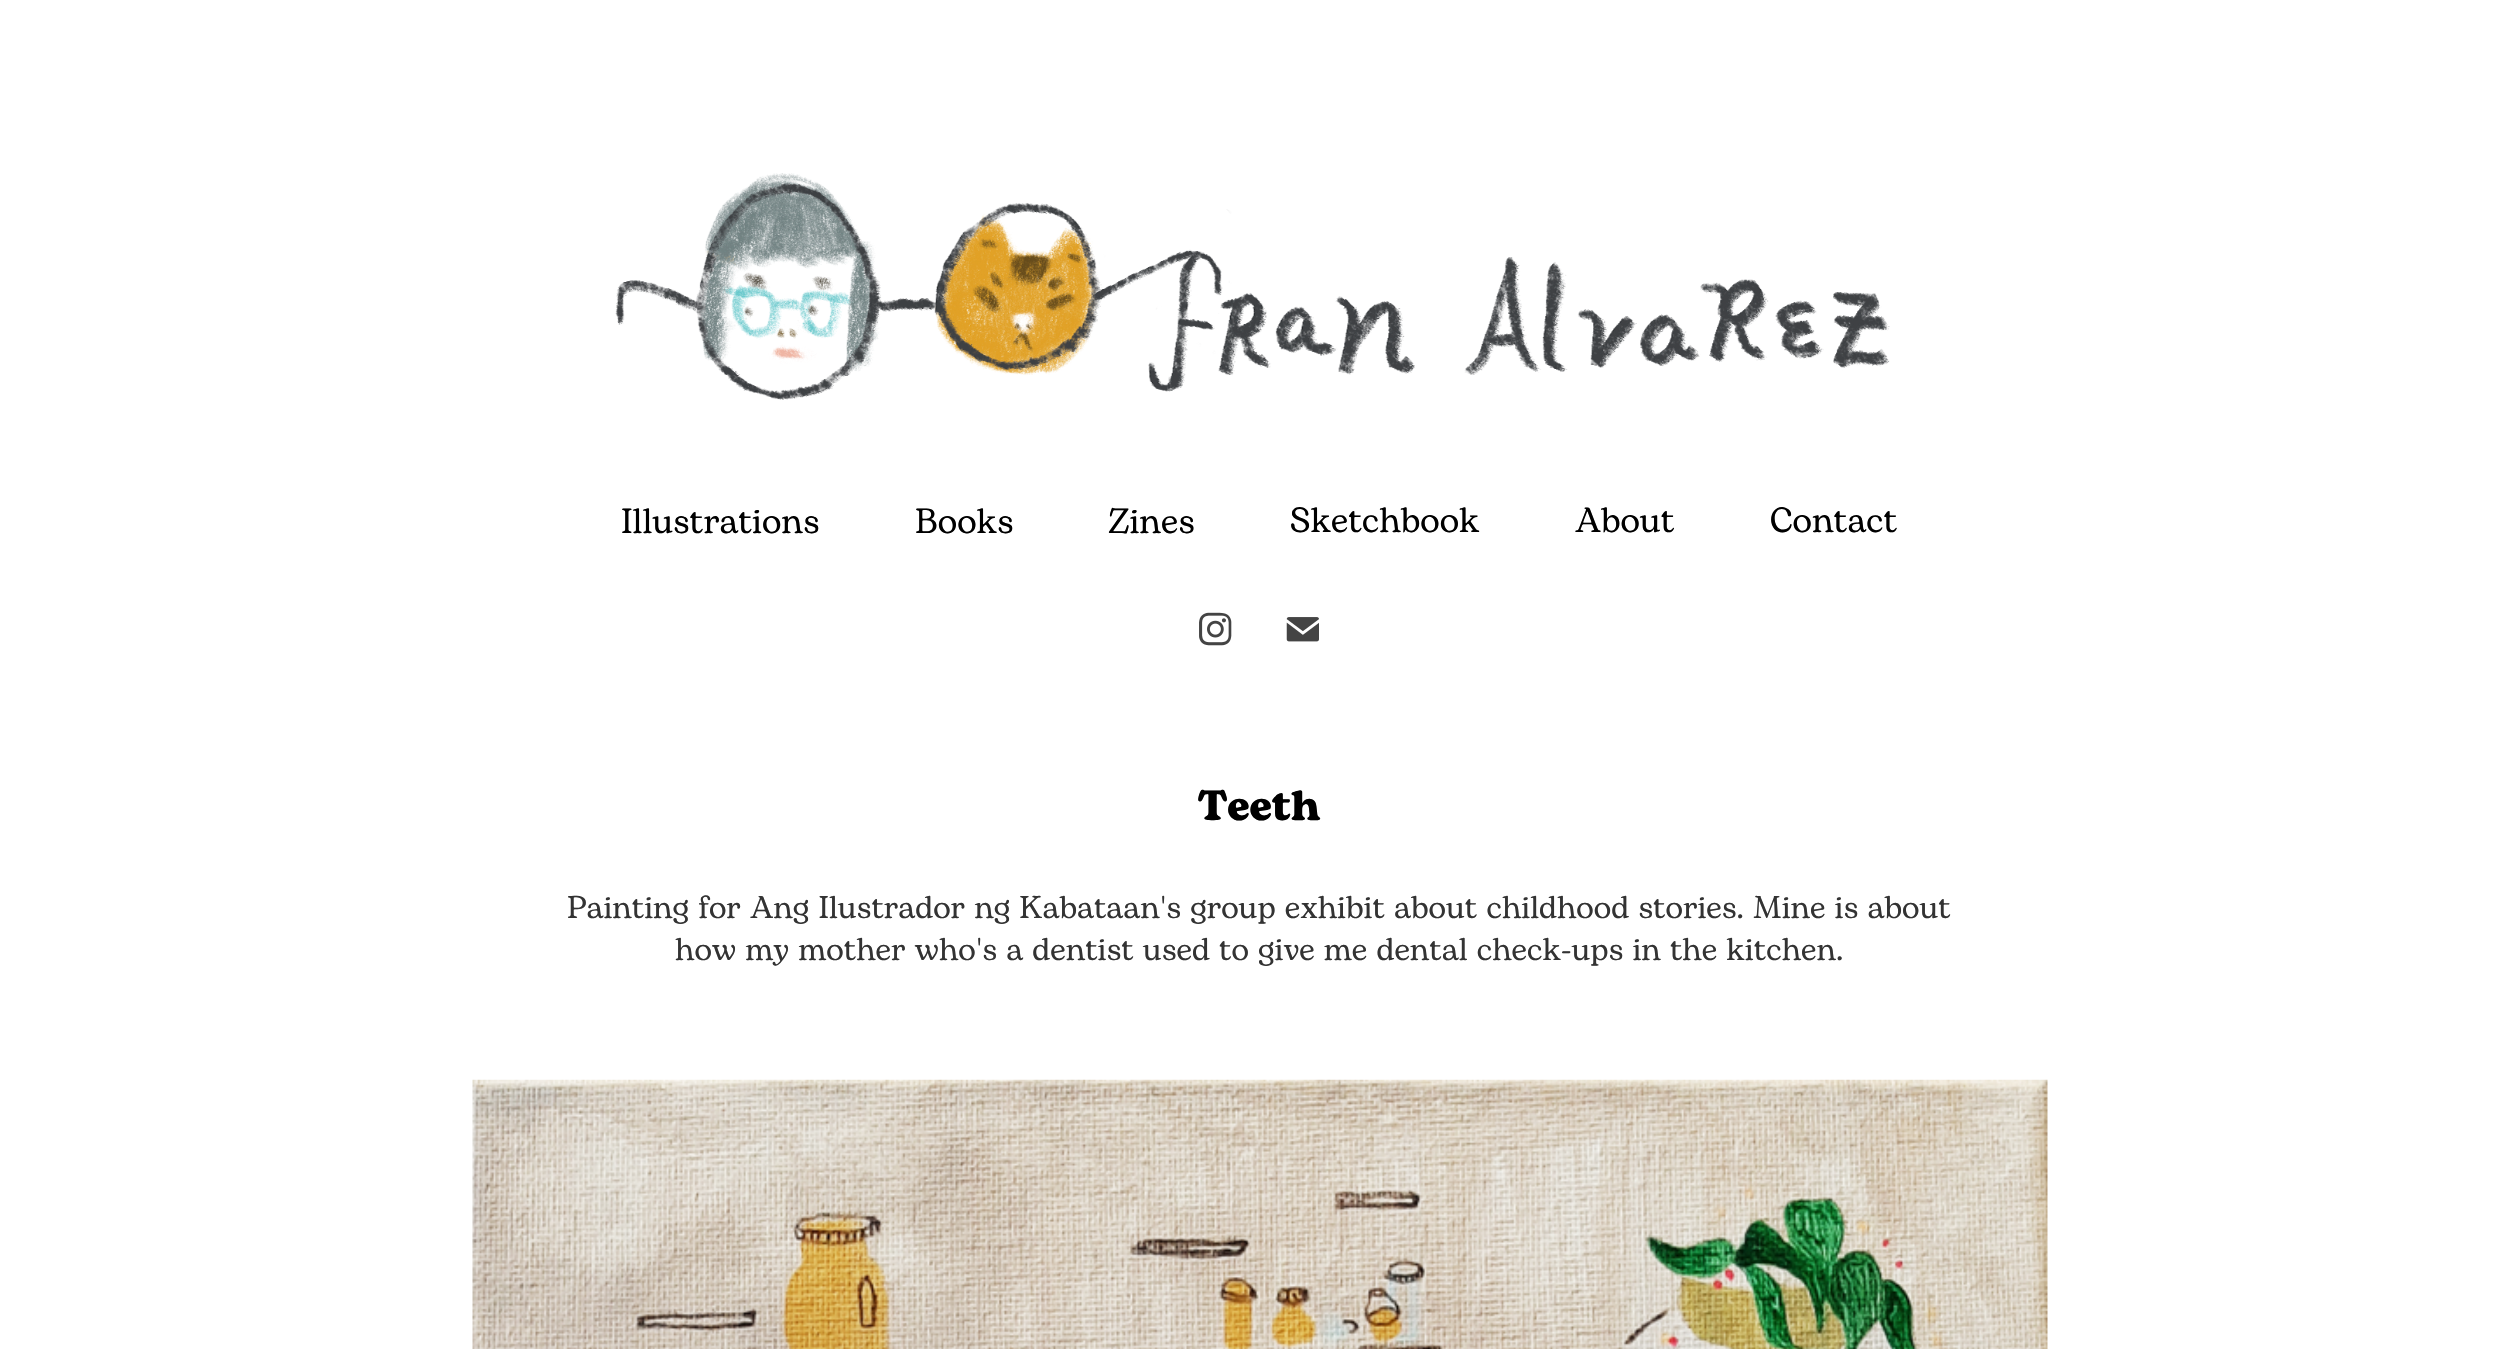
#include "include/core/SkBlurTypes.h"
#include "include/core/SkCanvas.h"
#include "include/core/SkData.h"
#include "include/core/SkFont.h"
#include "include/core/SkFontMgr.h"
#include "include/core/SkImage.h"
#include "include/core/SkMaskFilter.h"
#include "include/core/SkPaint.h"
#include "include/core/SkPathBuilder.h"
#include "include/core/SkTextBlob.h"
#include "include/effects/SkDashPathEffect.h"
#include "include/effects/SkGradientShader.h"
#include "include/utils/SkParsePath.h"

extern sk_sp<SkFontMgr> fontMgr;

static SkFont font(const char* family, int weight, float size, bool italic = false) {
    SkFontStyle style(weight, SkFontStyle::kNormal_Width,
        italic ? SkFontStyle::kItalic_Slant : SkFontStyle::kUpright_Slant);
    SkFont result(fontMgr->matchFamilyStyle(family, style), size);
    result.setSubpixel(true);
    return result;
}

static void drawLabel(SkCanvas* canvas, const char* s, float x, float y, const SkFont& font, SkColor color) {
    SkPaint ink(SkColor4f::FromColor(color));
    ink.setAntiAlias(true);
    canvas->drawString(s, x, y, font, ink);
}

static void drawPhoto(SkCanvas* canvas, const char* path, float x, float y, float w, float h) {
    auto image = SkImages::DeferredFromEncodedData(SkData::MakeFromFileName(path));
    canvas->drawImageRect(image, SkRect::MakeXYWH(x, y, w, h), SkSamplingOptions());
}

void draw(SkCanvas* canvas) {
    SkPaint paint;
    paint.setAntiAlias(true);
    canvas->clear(0xFFFFFFFF);
    drawPhoto(canvas, "assets/img1.png", 615, 173, 1275, 227);
    SkFont font1 = font("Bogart", 400, 35);
    drawLabel(canvas, "Illustrations", 621, 533, font1, 0xFF000000);
    drawLabel(canvas, "Books", 915, 533, font1, 0xFF000000);
    drawLabel(canvas, "Zines", 1108, 533, font1, 0xFF000000);
    drawLabel(canvas, "Sketchbook", 1290, 532, font1, 0xFF000000);
    drawLabel(canvas, "About", 1575, 532, font1, 0xFF000000);
    drawLabel(canvas, "Contact", 1770, 532, font1, 0xFF000000);
    drawPhoto(canvas, "assets/img2.png", 1199, 612, 33, 34);
    drawPhoto(canvas, "assets/img3.png", 1286, 617, 33, 25);
    SkFont font2 = font("Bogart", 700, 42);
    drawLabel(canvas, "Teeth", 1198, 820, font2, 0xFF000000);
    SkFont font3 = font("Bogart", 400, 31.5f);
    drawLabel(canvas, "Painting for Ang Ilustrador ng Kabataan's group exhibit about childhood stories. Mine is about", 567, 918, font3, 0xFF333333);
    drawLabel(canvas, "how my mother who's a dentist used to give me dental check-ups in the kitchen.", 675, 960, font3, 0xFF333333);
    drawPhoto(canvas, "assets/img4.png", 472, 1079, 1576, 270);
}
